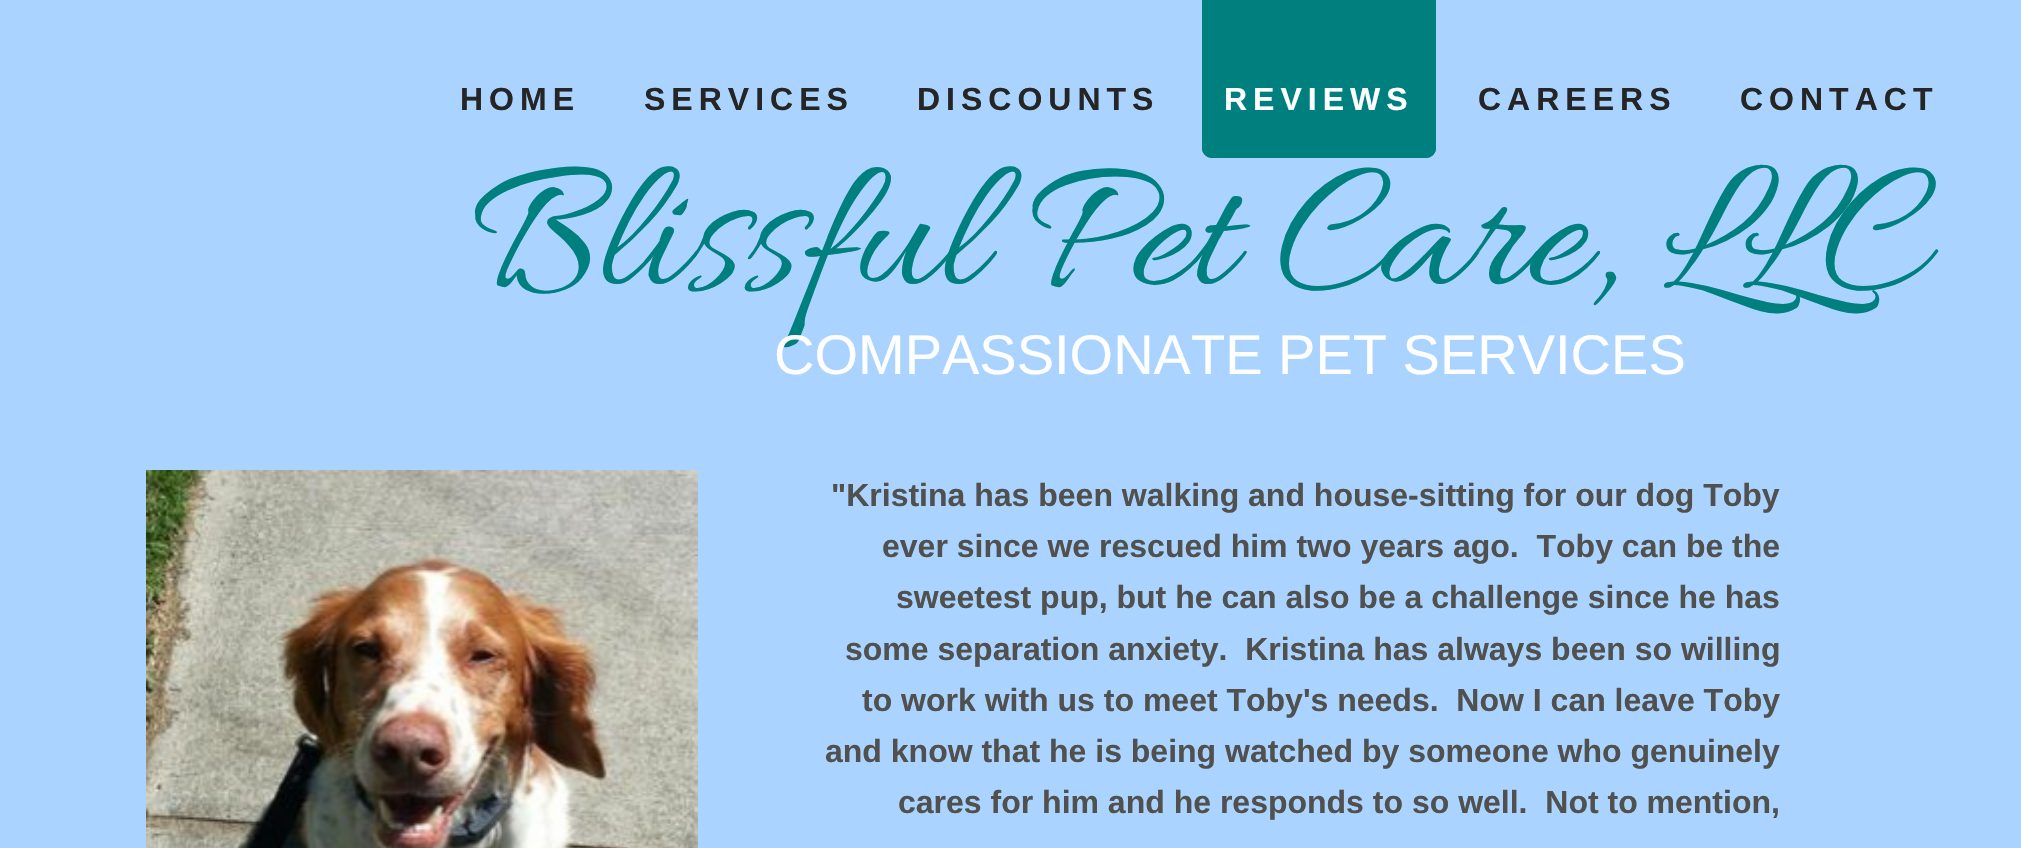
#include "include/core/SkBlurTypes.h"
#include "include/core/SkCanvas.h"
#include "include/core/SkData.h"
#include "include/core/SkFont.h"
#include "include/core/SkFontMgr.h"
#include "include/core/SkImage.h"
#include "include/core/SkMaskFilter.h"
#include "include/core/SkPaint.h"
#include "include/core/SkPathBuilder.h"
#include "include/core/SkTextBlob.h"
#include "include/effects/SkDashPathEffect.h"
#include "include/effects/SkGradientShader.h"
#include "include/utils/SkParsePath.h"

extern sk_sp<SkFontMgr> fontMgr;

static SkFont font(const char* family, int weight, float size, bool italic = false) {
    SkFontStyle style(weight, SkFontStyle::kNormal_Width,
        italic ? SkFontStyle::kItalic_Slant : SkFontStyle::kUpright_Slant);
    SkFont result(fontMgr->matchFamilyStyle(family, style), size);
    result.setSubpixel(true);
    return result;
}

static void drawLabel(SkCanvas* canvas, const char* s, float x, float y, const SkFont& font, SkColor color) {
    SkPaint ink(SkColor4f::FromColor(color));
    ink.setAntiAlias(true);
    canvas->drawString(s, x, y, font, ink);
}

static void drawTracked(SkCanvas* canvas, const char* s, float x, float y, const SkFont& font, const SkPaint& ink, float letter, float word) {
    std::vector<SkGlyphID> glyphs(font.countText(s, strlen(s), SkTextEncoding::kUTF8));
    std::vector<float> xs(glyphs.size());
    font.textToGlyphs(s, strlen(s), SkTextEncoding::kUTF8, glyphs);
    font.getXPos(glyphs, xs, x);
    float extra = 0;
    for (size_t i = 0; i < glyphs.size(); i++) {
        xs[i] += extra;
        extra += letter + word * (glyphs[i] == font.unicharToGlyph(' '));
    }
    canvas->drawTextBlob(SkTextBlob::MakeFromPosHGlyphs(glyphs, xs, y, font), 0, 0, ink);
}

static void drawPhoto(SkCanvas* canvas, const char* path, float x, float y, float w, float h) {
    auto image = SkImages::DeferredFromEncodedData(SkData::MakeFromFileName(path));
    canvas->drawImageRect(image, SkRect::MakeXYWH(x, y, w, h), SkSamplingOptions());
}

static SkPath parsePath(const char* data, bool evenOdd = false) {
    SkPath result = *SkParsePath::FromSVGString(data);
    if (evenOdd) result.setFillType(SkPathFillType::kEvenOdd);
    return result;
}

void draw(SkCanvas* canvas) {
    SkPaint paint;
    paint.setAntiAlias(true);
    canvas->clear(0xFFAAD4FF);
    SkFont font1 = font("Liberation Sans", 700, 32);
    paint.setColor(0xFF252525);
    drawTracked(canvas, "HOME", 460, 110, font1, paint, 6, 0);
    drawTracked(canvas, "SERVICES", 644, 110, font1, paint, 6, 0);
    drawTracked(canvas, "DISCOUNTS", 917, 110, font1, paint, 6, 0);
    paint.setColor(0xFF007F7F);
    canvas->drawPath(parsePath("M1202 0H1436V148C1436 153.5 1431.5 158 1426 158H1212C1206.5 158 1202 153.5 1202 148Z"), paint);
    paint.setStroke(true);
    paint.setStrokeWidth(2);
    canvas->drawPath(parsePath("M1203-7H1435V148C1435 153 1431 157 1426 157H1212C1207 157 1203 153 1203 148Z"), paint);
    paint.setStroke(false);
    paint.setColor(0xFFFFFFFF);
    drawTracked(canvas, "REVIEWS", 1224, 110, font1, paint, 6, 0);
    paint.setColor(0xFF252525);
    drawTracked(canvas, "CAREERS", 1478, 110, font1, paint, 6, 0);
    drawTracked(canvas, "CONTACT", 1740, 110, font1, paint, 6, 0);
    SkFont font2 = font("Allura", 400, 192);
    drawLabel(canvas, "Blissful Pet Care, LLC", 472, 282, font2, 0xFF007F7F);
    SkFont font3 = font("Liberation Sans", 400, 56);
    drawLabel(canvas, "COMPASSIONATE PET SERVICES", 774, 374, font3, 0xFFFFFFFF);
    drawPhoto(canvas, "assets/img1.png", 146, 470, 552, 378);
    drawLabel(canvas, "\"Kristina has been walking and house-sitting for our dog Toby", 831, 506, font1, 0xFF50504E);
    drawLabel(canvas, "ever since we rescued him two years ago.  Toby can be the", 882, 557, font1, 0xFF50504E);
    drawLabel(canvas, "sweetest pup, but he can also be a challenge since he has", 896, 608, font1, 0xFF50504E);
    drawLabel(canvas, "some separation anxiety.  Kristina has always been so willing", 845, 660, font1, 0xFF50504E);
    drawLabel(canvas, "to work with us to meet Toby's needs.  Now I can leave Toby", 862, 711, font1, 0xFF50504E);
    drawLabel(canvas, "and know that he is being watched by someone who genuinely", 825, 762, font1, 0xFF50504E);
    drawLabel(canvas, "cares for him and he responds to so well.  Not to mention,", 898, 813, font1, 0xFF50504E);
}
